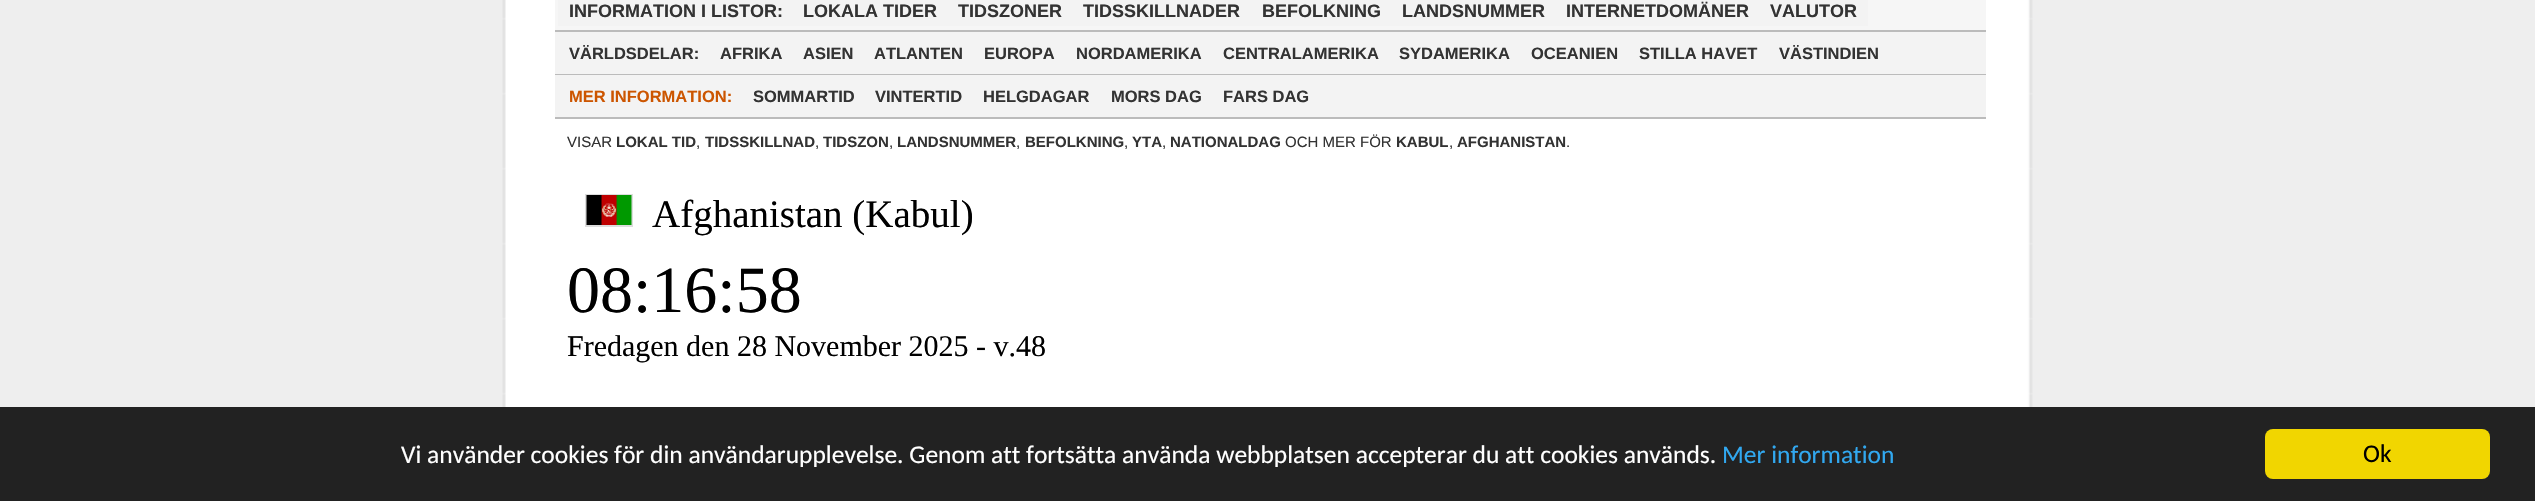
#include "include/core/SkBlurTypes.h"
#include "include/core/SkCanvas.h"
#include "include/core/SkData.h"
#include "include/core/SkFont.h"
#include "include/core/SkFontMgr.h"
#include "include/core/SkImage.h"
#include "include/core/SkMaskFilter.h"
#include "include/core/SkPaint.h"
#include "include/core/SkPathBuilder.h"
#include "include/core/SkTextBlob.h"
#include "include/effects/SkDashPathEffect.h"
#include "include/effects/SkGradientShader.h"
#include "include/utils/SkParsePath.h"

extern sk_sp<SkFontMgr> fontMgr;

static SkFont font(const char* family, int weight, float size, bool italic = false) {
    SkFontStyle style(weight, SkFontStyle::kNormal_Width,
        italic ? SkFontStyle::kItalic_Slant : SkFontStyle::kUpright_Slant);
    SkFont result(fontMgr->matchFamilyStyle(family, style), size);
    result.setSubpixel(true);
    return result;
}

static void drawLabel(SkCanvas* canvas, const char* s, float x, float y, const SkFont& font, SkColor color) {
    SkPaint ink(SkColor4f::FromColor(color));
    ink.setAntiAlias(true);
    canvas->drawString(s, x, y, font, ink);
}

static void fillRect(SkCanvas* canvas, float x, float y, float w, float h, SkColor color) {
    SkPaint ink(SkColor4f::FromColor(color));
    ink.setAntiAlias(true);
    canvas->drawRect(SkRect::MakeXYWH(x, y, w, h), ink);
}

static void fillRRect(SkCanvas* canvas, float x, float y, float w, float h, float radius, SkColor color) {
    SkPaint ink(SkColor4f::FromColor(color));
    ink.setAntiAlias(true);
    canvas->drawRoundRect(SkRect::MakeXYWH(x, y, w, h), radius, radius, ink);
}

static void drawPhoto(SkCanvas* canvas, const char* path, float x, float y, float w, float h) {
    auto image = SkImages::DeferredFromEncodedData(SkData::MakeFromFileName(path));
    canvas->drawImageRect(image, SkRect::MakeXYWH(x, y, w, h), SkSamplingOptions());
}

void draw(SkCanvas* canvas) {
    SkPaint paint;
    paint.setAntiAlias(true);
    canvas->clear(0xFFEEEEEE);
    drawPhoto(canvas, "assets/img1.png", 502, 0, 1531, 407);
    fillRect(canvas, 555, 0, 1431, 30, 0xFFF6F6F6);
    fillRect(canvas, 555, 30, 1431, 2, 0xFFBBBBBB);
    fillRect(canvas, 558, 0, 1310, 26, 0xFFF3F3F3);
    SkFont font1 = font("Liberation Sans", 700, 18);
    drawLabel(canvas, "INFORMATION I LISTOR:", 569, 17, font1, 0xFF333333);
    drawLabel(canvas, "LOKALA TIDER", 803, 17, font1, 0xFF333333);
    drawLabel(canvas, "TIDSZONER", 958, 17, font1, 0xFF333333);
    drawLabel(canvas, "TIDSSKILLNADER", 1083, 17, font1, 0xFF333333);
    drawLabel(canvas, "BEFOLKNING", 1262, 17, font1, 0xFF333333);
    drawLabel(canvas, "LANDSNUMMER", 1402, 17, font1, 0xFF333333);
    drawLabel(canvas, "INTERNETDOMÄNER", 1566, 17, font1, 0xFF333333);
    drawLabel(canvas, "VALUTOR", 1770, 17, font1, 0xFF333333);
    fillRect(canvas, 555, 32, 1431, 42, 0xFFF3F3F3);
    fillRect(canvas, 555, 74, 1431, 1, 0xFFBBBBBB);
    SkFont font2 = font("Liberation Sans", 700, 16.5f);
    drawLabel(canvas, "VÄRLDSDELAR:", 569, 59, font2, 0xFF333333);
    drawLabel(canvas, "AFRIKA", 720, 59, font2, 0xFF333333);
    drawLabel(canvas, "ASIEN", 803, 59, font2, 0xFF333333);
    drawLabel(canvas, "ATLANTEN", 874, 59, font2, 0xFF333333);
    drawLabel(canvas, "EUROPA", 984, 59, font2, 0xFF333333);
    drawLabel(canvas, "NORDAMERIKA", 1076, 59, font2, 0xFF333333);
    drawLabel(canvas, "CENTRALAMERIKA", 1223, 59, font2, 0xFF333333);
    drawLabel(canvas, "SYDAMERIKA", 1399, 59, font2, 0xFF333333);
    drawLabel(canvas, "OCEANIEN", 1531, 59, font2, 0xFF333333);
    drawLabel(canvas, "STILLA HAVET", 1639, 59, font2, 0xFF333333);
    drawLabel(canvas, "VÄSTINDIEN", 1779, 59, font2, 0xFF333333);
    fillRect(canvas, 555, 75, 1431, 42, 0xFFF3F3F3);
    fillRect(canvas, 555, 117, 1431, 2, 0xFFBBBBBB);
    drawLabel(canvas, "MER INFORMATION:", 569, 102, font2, 0xFFCC5500);
    drawLabel(canvas, "SOMMARTID", 753, 102, font2, 0xFF333333);
    drawLabel(canvas, "VINTERTID", 875, 102, font2, 0xFF333333);
    drawLabel(canvas, "HELGDAGAR", 983, 102, font2, 0xFF333333);
    drawLabel(canvas, "MORS DAG", 1111, 102, font2, 0xFF333333);
    drawLabel(canvas, "FARS DAG", 1223, 102, font2, 0xFF333333);
    SkFont font3 = font("Liberation Sans", 400, 15);
    drawLabel(canvas, "VISAR", 567, 147, font3, 0xFF333333);
    SkFont font4 = font("Liberation Sans", 700, 15);
    drawLabel(canvas, "LOKAL TID", 616, 147, font4, 0xFF333333);
    drawLabel(canvas, ",", 696, 147, font3, 0xFF333333);
    drawLabel(canvas, "TIDSSKILLNAD", 705, 147, font4, 0xFF333333);
    drawLabel(canvas, ",", 815, 147, font3, 0xFF333333);
    drawLabel(canvas, "TIDSZON", 823, 147, font4, 0xFF333333);
    drawLabel(canvas, ",", 889, 147, font3, 0xFF333333);
    drawLabel(canvas, "LANDSNUMMER", 897, 147, font4, 0xFF333333);
    drawLabel(canvas, ",", 1016, 147, font3, 0xFF333333);
    drawLabel(canvas, "BEFOLKNING", 1025, 147, font4, 0xFF333333);
    drawLabel(canvas, ",", 1124, 147, font3, 0xFF333333);
    drawLabel(canvas, "YTA", 1132, 147, font4, 0xFF333333);
    drawLabel(canvas, ",", 1162, 147, font3, 0xFF333333);
    drawLabel(canvas, "NATIONALDAG", 1170, 147, font4, 0xFF333333);
    drawLabel(canvas, "OCH MER FÖR", 1285, 147, font3, 0xFF333333);
    drawLabel(canvas, "KABUL", 1396, 147, font4, 0xFF333333);
    drawLabel(canvas, ",", 1449, 147, font3, 0xFF333333);
    drawLabel(canvas, "AFGHANISTAN", 1457, 147, font4, 0xFF333333);
    drawLabel(canvas, ".", 1566, 147, font3, 0xFF333333);
    paint.setStroke(true);
    paint.setStrokeWidth(2);
    paint.setColor(0xFFDDDDDD);
    canvas->drawRect(SkRect::MakeXYWH(586, 195, 46, 31), paint);
    drawPhoto(canvas, "assets/img2.png", 586, 195, 46, 30);
    SkFont font5 = font("Liberation Serif", 400, 39);
    drawLabel(canvas, "Afghanistan (Kabul)", 652, 227, font5, 0xFF000000);
    SkFont font6 = font("Liberation Serif", 400, 66);
    drawLabel(canvas, "08:16:58", 567, 312, font6, 0xFF000000);
    SkFont font7 = font("Liberation Serif", 400, 30);
    drawLabel(canvas, "Fredagen den 28 November 2025 - v.48", 567, 356, font7, 0xFF000000);
    fillRect(canvas, 0, 407, 2535, 94, 0xFF222222);
    SkFont font8 = font("Carlito", 400, 25.5f);
    drawLabel(canvas, "Vi använder cookies för din användarupplevelse. Genom att fortsätta använda webbplatsen accepterar du att cookies används.", 401, 463, font8, 0xFFFFFFFF);
    drawLabel(canvas, "Mer information", 1722, 463, font8, 0xFF31A8F0);
    fillRRect(canvas, 2265, 429, 225, 50, 8, 0xFFF1D600);
    drawLabel(canvas, "Ok", 2363, 462, font8, 0xFF000000);
}
